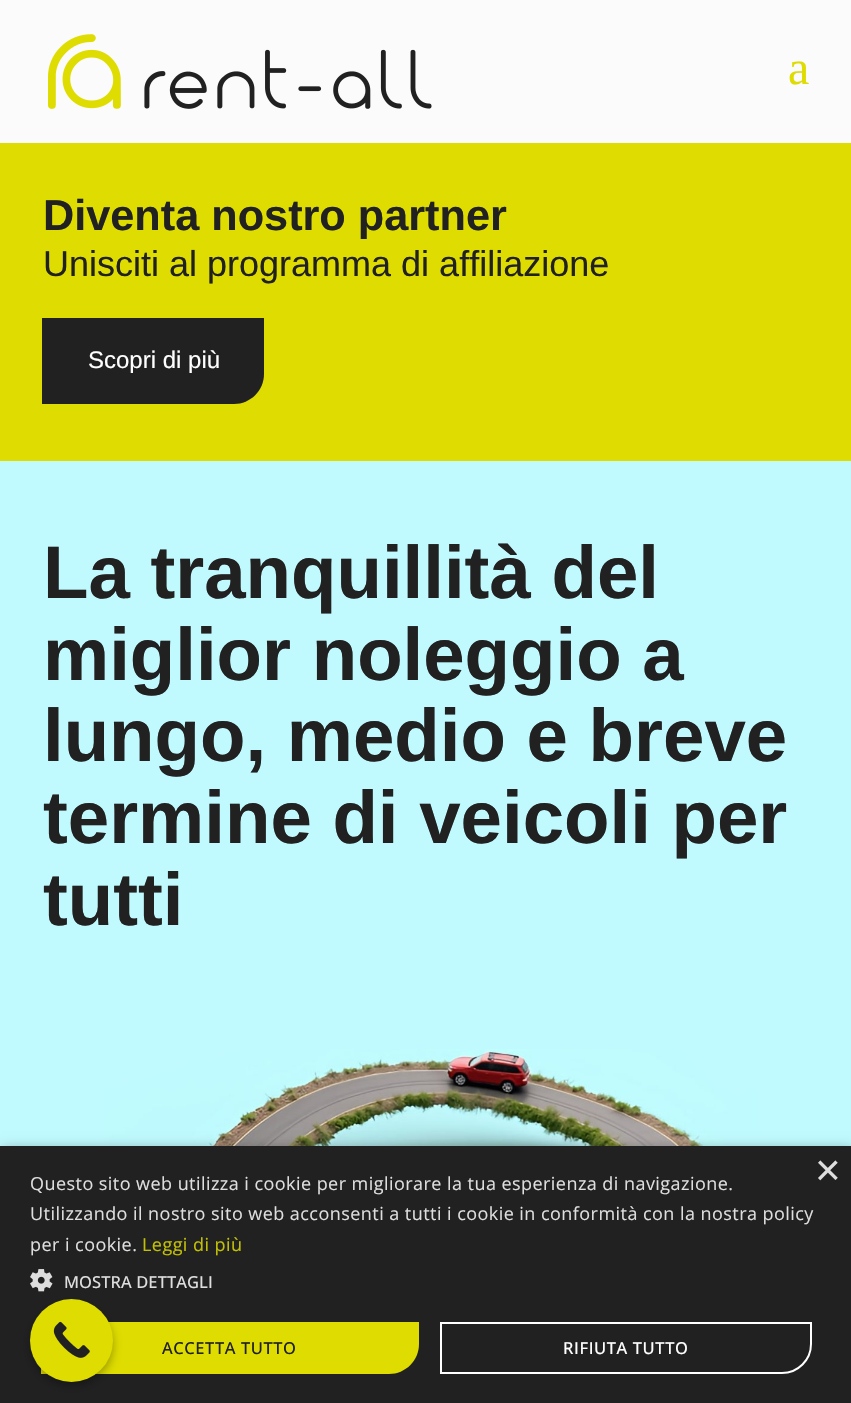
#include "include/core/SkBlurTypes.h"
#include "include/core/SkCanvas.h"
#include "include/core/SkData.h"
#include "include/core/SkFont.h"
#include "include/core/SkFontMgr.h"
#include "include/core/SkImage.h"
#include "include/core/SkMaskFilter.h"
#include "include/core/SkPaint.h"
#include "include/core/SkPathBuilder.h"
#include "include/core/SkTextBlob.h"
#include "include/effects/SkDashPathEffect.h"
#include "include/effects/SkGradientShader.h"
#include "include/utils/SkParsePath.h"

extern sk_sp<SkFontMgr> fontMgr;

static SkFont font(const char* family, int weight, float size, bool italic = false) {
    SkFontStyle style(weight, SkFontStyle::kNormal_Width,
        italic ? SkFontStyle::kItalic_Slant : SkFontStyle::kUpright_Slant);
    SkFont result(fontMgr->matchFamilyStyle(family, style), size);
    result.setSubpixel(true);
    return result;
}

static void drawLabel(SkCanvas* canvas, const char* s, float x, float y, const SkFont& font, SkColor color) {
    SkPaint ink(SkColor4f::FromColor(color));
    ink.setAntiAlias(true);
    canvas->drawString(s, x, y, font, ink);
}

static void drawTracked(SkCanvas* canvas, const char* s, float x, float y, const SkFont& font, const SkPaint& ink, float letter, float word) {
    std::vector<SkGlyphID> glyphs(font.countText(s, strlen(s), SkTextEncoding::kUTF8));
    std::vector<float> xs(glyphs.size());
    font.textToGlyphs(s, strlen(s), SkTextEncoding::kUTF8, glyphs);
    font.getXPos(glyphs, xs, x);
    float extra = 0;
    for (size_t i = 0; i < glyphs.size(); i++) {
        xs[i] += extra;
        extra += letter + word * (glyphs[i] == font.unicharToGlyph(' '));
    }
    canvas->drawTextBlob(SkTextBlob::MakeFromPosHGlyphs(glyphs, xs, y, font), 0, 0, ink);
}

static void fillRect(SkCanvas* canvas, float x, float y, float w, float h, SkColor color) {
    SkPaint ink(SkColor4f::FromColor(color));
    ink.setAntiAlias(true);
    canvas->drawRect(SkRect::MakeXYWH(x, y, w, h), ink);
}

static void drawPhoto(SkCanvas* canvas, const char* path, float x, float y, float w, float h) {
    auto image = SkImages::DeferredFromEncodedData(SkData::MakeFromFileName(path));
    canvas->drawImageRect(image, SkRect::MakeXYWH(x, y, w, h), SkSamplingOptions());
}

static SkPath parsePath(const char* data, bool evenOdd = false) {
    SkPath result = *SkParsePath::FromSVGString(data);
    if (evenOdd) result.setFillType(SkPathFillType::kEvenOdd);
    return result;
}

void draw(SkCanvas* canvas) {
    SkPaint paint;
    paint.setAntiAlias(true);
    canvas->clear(0xFFDEDC00);
    fillRect(canvas, 0, 0, 851, 143, 0xFFFBFBFB);
    drawPhoto(canvas, "assets/img1.png", 48, 34, 384, 75);
    SkFont font1 = font("Liberation Serif", 400, 48);
    drawLabel(canvas, "a", 788, 84, font1, 0xFFDEDC00);
    SkFont font2 = font("Liberation Sans", 700, 43.25f);
    drawLabel(canvas, "Diventa nostro partner", 43, 230, font2, 0xFF212121);
    SkFont font3 = font("Liberation Sans", 400, 36);
    drawLabel(canvas, "Unisciti al programma di affiliazione", 43, 276, font3, 0xFF212121);
    paint.setColor(0xFF212121);
    canvas->drawPath(parsePath("M42 318H264V374C264 390.5 250.5 404 234 404H42Z"), paint);
    SkFont font4 = font("Liberation Sans", 400, 24);
    drawLabel(canvas, "Scopri di più", 88, 368, font4, 0xFFFFFFFF);
    fillRect(canvas, 0, 461, 851, 685, 0xFFC0FAFE);
    SkFont font5 = font("Liberation Sans", 700, 74.4f);
    drawLabel(canvas, "La tranquillità del", 43, 598, font5, 0xFF212121);
    drawLabel(canvas, "miglior noleggio a", 43, 680, font5, 0xFF212121);
    drawLabel(canvas, "lungo, medio e breve", 43, 761, font5, 0xFF212121);
    drawLabel(canvas, "termine di veicoli per", 43, 843, font5, 0xFF212121);
    drawLabel(canvas, "tutti", 43, 925, font5, 0xFF212121);
    drawPhoto(canvas, "assets/img2.png", 104, 1049, 658, 97);
    paint.setColor(0x59000000);
    paint.setMaskFilter(SkMaskFilter::MakeBlur(kNormal_SkBlurStyle, 6));
    canvas->drawRect(SkRect::MakeXYWH(2, 1149, 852, 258), paint);
    paint.setMaskFilter(nullptr);
    fillRect(canvas, 0, 1146, 851, 257, 0xFF212121);
    SkFont font6 = font("Liberation Sans", 400, 44);
    drawLabel(canvas, "×", 815, 1185, font6, 0xFFDEDEDE);
    SkFont font7 = font("Open Sans", 400, 18);
    paint.setColor(0xFFDEDEDE);
    drawTracked(canvas, "Questo sito web utilizza i cookie per migliorare la tua esperienza di navigazione.", 30, 1190, font7, paint, 0.45f, 0);
    drawTracked(canvas, "Utilizzando il nostro sito web acconsenti a tutti i cookie in conformità con la nostra policy", 30, 1220, font7, paint, 0.45f, 0);
    drawTracked(canvas, "per i cookie.", 30, 1251, font7, paint, 0.45f, 0);
    paint.setColor(0xFFC2C005);
    drawTracked(canvas, "Leggi di più", 142, 1251, font7, paint, 0.45f, 0);
    drawPhoto(canvas, "assets/img3.png", 30, 1269, 23, 23);
    SkFont font8 = font("Open Sans", 500, 16.5f);
    paint.setColor(0xFFDEDEDE);
    drawTracked(canvas, "MOSTRA DETTAGLI", 64, 1288, font8, paint, 0.1f, 0);
    paint.setColor(0xFFDEDC00);
    canvas->drawPath(parsePath("M41 1322H419V1344C419 1360.5 405.5 1374 389 1374H41Z"), paint);
    paint.setColor(0xFF212121);
    drawTracked(canvas, "ACCETTA TUTTO", 162, 1354, font8, paint, 0.6f, 0);
    paint.setStroke(true);
    paint.setStrokeWidth(2);
    paint.setColor(0xFFFFFFFF);
    canvas->drawPath(parsePath("M441 1323H811V1344C811 1360 798 1373 782 1373H441Z"), paint);
    paint.setStroke(false);
    drawTracked(canvas, "RIFIUTA TUTTO", 563, 1354, font8, paint, 0.6f, 0);
    paint.setColor(0x4D000000);
    paint.setMaskFilter(SkMaskFilter::MakeBlur(kNormal_SkBlurStyle, 4.5f));
    canvas->drawRoundRect(SkRect::MakeXYWH(30, 1304, 83, 82), 41, 41, paint);
    paint.setMaskFilter(nullptr);
    paint.setColor(0xFFDEDC00);
    canvas->drawCircle(71.5f, 1340.5f, 41.5f, paint);
    drawPhoto(canvas, "assets/img4.png", 53, 1321, 37, 37);
}
